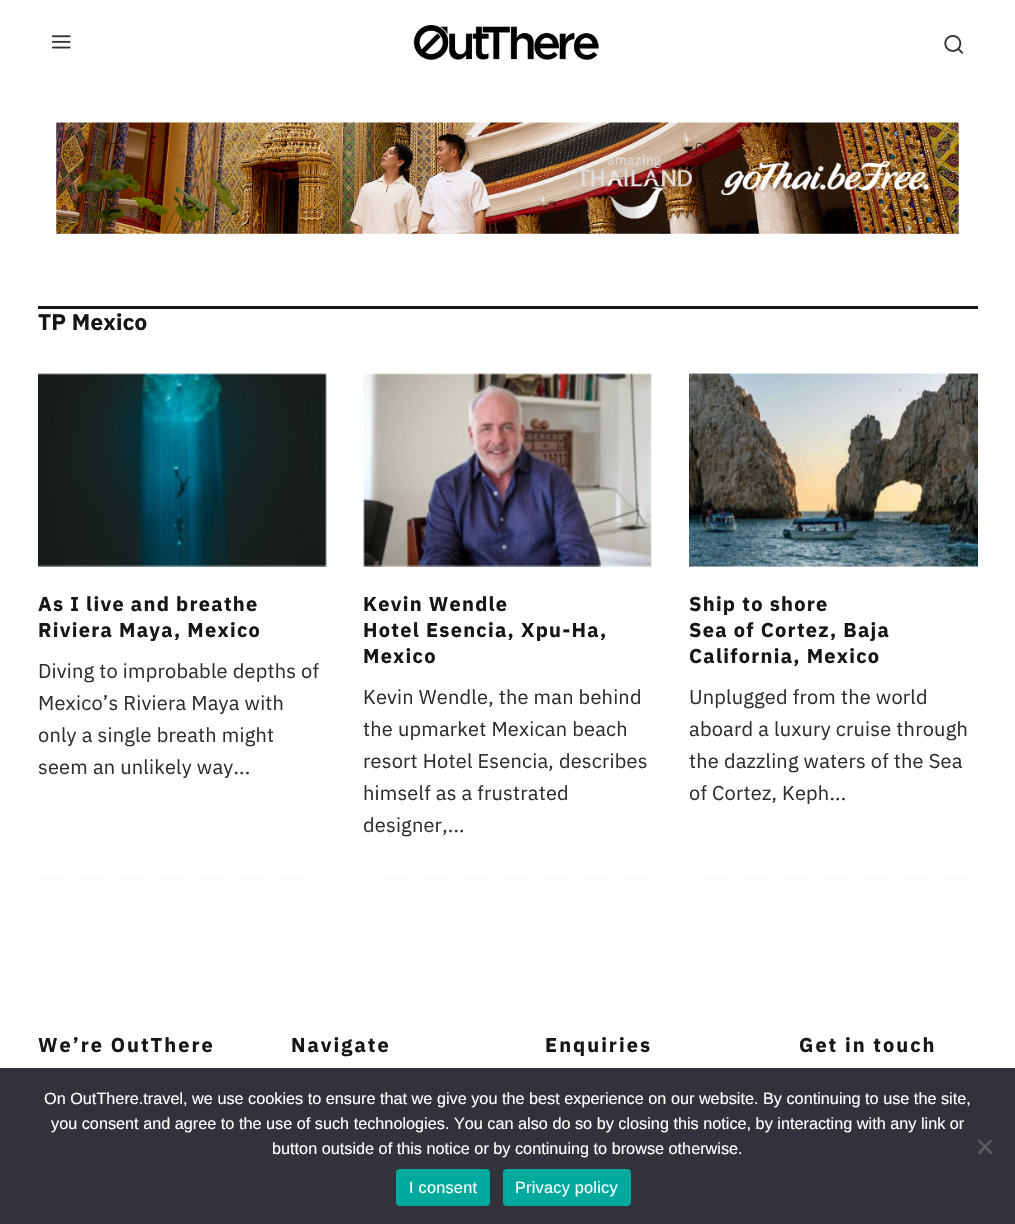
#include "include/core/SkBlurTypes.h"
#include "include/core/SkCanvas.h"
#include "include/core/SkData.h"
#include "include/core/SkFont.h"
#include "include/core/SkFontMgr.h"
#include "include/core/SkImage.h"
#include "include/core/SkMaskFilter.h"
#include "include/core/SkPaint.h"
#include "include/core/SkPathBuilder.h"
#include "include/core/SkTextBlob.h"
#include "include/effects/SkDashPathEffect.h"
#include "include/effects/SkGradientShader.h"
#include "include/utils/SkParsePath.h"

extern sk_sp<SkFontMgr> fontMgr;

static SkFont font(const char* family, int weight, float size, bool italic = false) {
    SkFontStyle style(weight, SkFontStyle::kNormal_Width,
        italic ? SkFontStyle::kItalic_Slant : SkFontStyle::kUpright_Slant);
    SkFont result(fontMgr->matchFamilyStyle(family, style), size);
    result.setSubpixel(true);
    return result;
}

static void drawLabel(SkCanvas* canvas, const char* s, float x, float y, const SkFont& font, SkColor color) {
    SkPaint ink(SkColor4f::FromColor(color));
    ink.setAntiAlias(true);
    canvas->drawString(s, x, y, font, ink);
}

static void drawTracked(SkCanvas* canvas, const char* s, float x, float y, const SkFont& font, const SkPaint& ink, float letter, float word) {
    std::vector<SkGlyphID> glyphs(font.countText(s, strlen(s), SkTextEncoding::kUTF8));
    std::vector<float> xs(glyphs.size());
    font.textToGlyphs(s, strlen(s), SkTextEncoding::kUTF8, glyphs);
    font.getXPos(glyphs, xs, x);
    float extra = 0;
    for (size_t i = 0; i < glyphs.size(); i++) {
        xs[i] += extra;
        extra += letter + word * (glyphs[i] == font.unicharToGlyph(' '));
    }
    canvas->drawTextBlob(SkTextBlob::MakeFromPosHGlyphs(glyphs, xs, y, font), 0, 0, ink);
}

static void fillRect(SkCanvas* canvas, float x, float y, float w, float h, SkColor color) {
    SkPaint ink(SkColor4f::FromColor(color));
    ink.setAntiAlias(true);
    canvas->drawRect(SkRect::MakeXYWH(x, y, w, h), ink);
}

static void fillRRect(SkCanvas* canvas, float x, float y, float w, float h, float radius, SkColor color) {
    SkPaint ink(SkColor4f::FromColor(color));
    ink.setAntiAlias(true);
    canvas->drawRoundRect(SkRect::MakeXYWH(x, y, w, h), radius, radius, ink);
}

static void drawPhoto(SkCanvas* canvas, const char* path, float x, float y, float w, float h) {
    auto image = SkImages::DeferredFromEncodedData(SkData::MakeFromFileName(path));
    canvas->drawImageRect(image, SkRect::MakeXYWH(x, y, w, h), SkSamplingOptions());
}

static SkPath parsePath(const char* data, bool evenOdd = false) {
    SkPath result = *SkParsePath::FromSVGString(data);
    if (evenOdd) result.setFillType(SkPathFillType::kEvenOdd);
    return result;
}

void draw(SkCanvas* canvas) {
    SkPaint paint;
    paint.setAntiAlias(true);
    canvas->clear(0xFFFFFFFF);
    drawPhoto(canvas, "assets/img1.png", 51, 35, 20, 14);
    drawPhoto(canvas, "assets/img2.png", 413, 25, 186, 35);
    drawPhoto(canvas, "assets/img3.png", 944, 35, 20, 19);
    drawPhoto(canvas, "assets/img4.png", 56, 122, 903, 112);
    fillRect(canvas, 38, 306, 940, 3, 0xFF161616);
    SkFont font1 = font("IBM Plex Sans", 700, 22.5f);
    paint.setColor(0xFF161616);
    drawTracked(canvas, "TP Mexico", 38, 330, font1, paint, 0.2f, 0);
    paint.setStroke(true);
    paint.setStrokeWidth(1.2f);
    paint.setColor(0xFFF2F2F2);
    paint.setPathEffect(SkDashPathEffect::Make({{1.25f, 1.25f}}, 0));
    canvas->drawPath(parsePath("M37.5 879.5H326"), paint);
    paint.setPathEffect(nullptr);
    drawPhoto(canvas, "assets/img5.png", 38, 373, 289, 194);
    SkFont font2 = font("IBM Plex Sans", 700, 20);
    paint.setStroke(false);
    paint.setColor(0xFF161616);
    drawTracked(canvas, "As I live and breathe", 38, 611, font2, paint, 1.25f, 0);
    drawTracked(canvas, "Riviera Maya, Mexico", 38, 637, font2, paint, 1.25f, 0);
    SkFont font3 = font("IBM Plex Sans", 400, 20);
    paint.setColor(0xFF2E2E2E);
    drawTracked(canvas, "Diving to improbable depths of", 38, 678, font3, paint, 0.2f, 0);
    drawTracked(canvas, "Mexico’s Riviera Maya with", 38, 710, font3, paint, 0.2f, 0);
    drawTracked(canvas, "only a single breath might", 38, 742, font3, paint, 0.2f, 0);
    drawTracked(canvas, "seem an unlikely way...", 38, 774, font3, paint, 0.2f, 0);
    paint.setStroke(true);
    paint.setColor(0xFFF2F2F2);
    paint.setPathEffect(SkDashPathEffect::Make({{1.25f, 1.25f}}, 0));
    canvas->drawPath(parsePath("M364 879.5H651"), paint);
    paint.setPathEffect(nullptr);
    drawPhoto(canvas, "assets/img6.png", 363, 373, 289, 194);
    paint.setStroke(false);
    paint.setColor(0xFF161616);
    drawTracked(canvas, "Kevin Wendle", 363, 611, font2, paint, 1.25f, 0);
    drawTracked(canvas, "Hotel Esencia, Xpu-Ha,", 363, 637, font2, paint, 1.25f, 0);
    drawTracked(canvas, "Mexico", 363, 663, font2, paint, 1.25f, 0);
    paint.setColor(0xFF2E2E2E);
    drawTracked(canvas, "Kevin Wendle, the man behind", 363, 704, font3, paint, 0.2f, 0);
    drawTracked(canvas, "the upmarket Mexican beach", 363, 736, font3, paint, 0.2f, 0);
    drawTracked(canvas, "resort Hotel Esencia, describes", 363, 768, font3, paint, 0.2f, 0);
    drawTracked(canvas, "himself as a frustrated", 363, 800, font3, paint, 0.2f, 0);
    drawTracked(canvas, "designer,...", 363, 832, font3, paint, 0.2f, 0);
    paint.setStroke(true);
    paint.setColor(0xFFF2F2F2);
    paint.setPathEffect(SkDashPathEffect::Make({{1.25f, 1.25f}}, 0));
    canvas->drawPath(parsePath("M689 879.5H977.5"), paint);
    paint.setPathEffect(nullptr);
    drawPhoto(canvas, "assets/img7.png", 689, 373, 289, 194);
    paint.setStroke(false);
    paint.setColor(0xFF161616);
    drawTracked(canvas, "Ship to shore", 689, 611, font2, paint, 1.25f, 0);
    drawTracked(canvas, "Sea of Cortez, Baja", 689, 637, font2, paint, 1.25f, 0);
    drawTracked(canvas, "California, Mexico", 689, 663, font2, paint, 1.25f, 0);
    paint.setColor(0xFF2E2E2E);
    drawTracked(canvas, "Unplugged from the world", 689, 704, font3, paint, 0.2f, 0);
    drawTracked(canvas, "aboard a luxury cruise through", 689, 736, font3, paint, 0.2f, 0);
    drawTracked(canvas, "the dazzling waters of the Sea", 689, 768, font3, paint, 0.2f, 0);
    drawTracked(canvas, "of Cortez, Keph...", 689, 800, font3, paint, 0.2f, 0);
    paint.setColor(0xFF161616);
    drawTracked(canvas, "We’re OutThere", 38, 1052, font2, paint, 2, 0);
    drawTracked(canvas, "Navigate", 291, 1052, font2, paint, 2, 0);
    drawTracked(canvas, "Enquiries", 545, 1052, font2, paint, 2, 0);
    drawTracked(canvas, "Get in touch", 799, 1052, font2, paint, 2, 0);
    fillRect(canvas, 0, 1068, 1015, 156, 0xFF32323A);
    SkFont font4 = font("Liberation Sans", 400, 16.25f);
    drawLabel(canvas, "On OutThere.travel, we use cookies to ensure that we give you the best experience on our website. By continuing to use the site,", 44, 1104, font4, 0xFFFFFFFF);
    drawLabel(canvas, "you consent and agree to the use of such technologies. You can also do so by closing this notice, by interacting with any link or", 51, 1129, font4, 0xFFFFFFFF);
    drawLabel(canvas, "button outside of this notice or by continuing to browse otherwise.", 272, 1154, font4, 0xFFFFFFFF);
    paint.setColor(0xFF59595D);
    canvas->drawPath(parsePath("M990.5 1139.5L992.5 1141L979.5 1154.5L977.5 1152.5Z"), paint);
    canvas->drawPath(parsePath("M977.5 1141L979.5 1139.5L992.5 1152.5L990.5 1154.5Z"), paint);
    fillRRect(canvas, 396, 1169, 94, 37, 4, 0xFF00A99D);
    paint.setColor(0xFFFFFFFF);
    drawTracked(canvas, "I consent", 409, 1193, font4, paint, 0.25f, 0);
    fillRRect(canvas, 503, 1169, 128, 37, 4, 0xFF00A99D);
    drawTracked(canvas, "Privacy policy", 515, 1193, font4, paint, 0.25f, 0);
}
